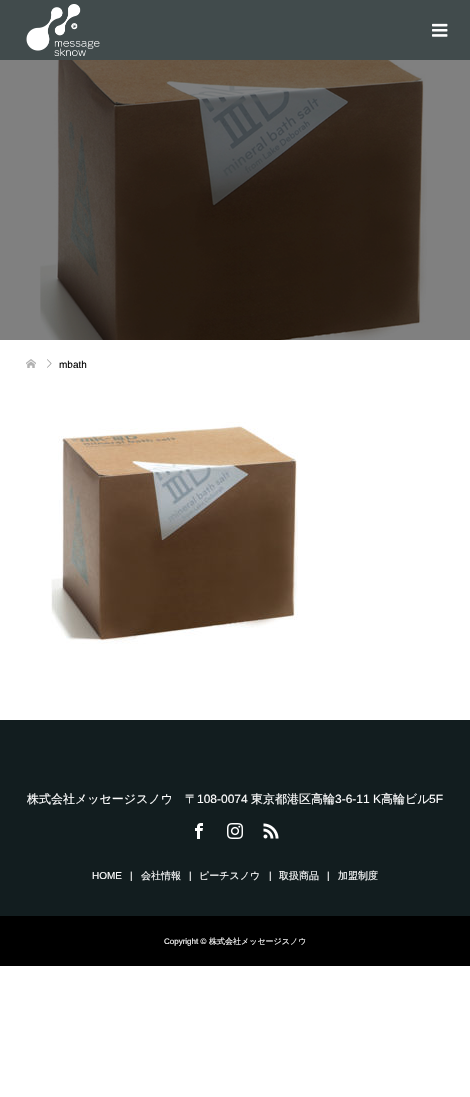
#include "include/core/SkBlurTypes.h"
#include "include/core/SkCanvas.h"
#include "include/core/SkData.h"
#include "include/core/SkFont.h"
#include "include/core/SkFontMgr.h"
#include "include/core/SkImage.h"
#include "include/core/SkMaskFilter.h"
#include "include/core/SkPaint.h"
#include "include/core/SkPathBuilder.h"
#include "include/core/SkTextBlob.h"
#include "include/effects/SkDashPathEffect.h"
#include "include/effects/SkGradientShader.h"
#include "include/utils/SkParsePath.h"

extern sk_sp<SkFontMgr> fontMgr;

static SkFont font(const char* family, int weight, float size, bool italic = false) {
    SkFontStyle style(weight, SkFontStyle::kNormal_Width,
        italic ? SkFontStyle::kItalic_Slant : SkFontStyle::kUpright_Slant);
    SkFont result(fontMgr->matchFamilyStyle(family, style), size);
    result.setSubpixel(true);
    return result;
}

static void drawLabel(SkCanvas* canvas, const char* s, float x, float y, const SkFont& font, SkColor color) {
    SkPaint ink(SkColor4f::FromColor(color));
    ink.setAntiAlias(true);
    canvas->drawString(s, x, y, font, ink);
}

static void fillRect(SkCanvas* canvas, float x, float y, float w, float h, SkColor color) {
    SkPaint ink(SkColor4f::FromColor(color));
    ink.setAntiAlias(true);
    canvas->drawRect(SkRect::MakeXYWH(x, y, w, h), ink);
}

static void drawPhoto(SkCanvas* canvas, const char* path, float x, float y, float w, float h) {
    auto image = SkImages::DeferredFromEncodedData(SkData::MakeFromFileName(path));
    canvas->drawImageRect(image, SkRect::MakeXYWH(x, y, w, h), SkSamplingOptions());
}

void draw(SkCanvas* canvas) {
    SkPaint paint;
    paint.setAntiAlias(true);
    canvas->clear(0xFFFFFFFF);
    fillRect(canvas, 0, 60, 470, 280, 0xFF808080);
    fillRect(canvas, 0, 0, 470, 60, 0xFF414B4C);
    drawPhoto(canvas, "assets/img1.png", 26, 4, 74, 52);
    drawPhoto(canvas, "assets/img2.png", 432, 23, 16, 14);
    drawPhoto(canvas, "assets/img3.png", 40, 60, 387, 280);
    drawPhoto(canvas, "assets/img4.png", 26, 359, 10, 9);
    drawPhoto(canvas, "assets/img5.png", 47, 359, 5, 9);
    SkFont font1 = font("Liberation Sans", 400, 10);
    drawLabel(canvas, "mbath", 59, 368, font1, 0xFF000000);
    drawPhoto(canvas, "assets/img6.png", 51, 422, 247, 222);
    fillRect(canvas, 0, 720, 470, 196, 0xFF121D1F);
    SkFont font2 = font("WenQuanYi Zen Hei", 500, 12);
    drawLabel(canvas, "株式会社メッセージスノウ　〒", 27, 803, font2, 0xFFFFFFFF);
    SkFont font3 = font("Liberation Sans", 400, 12);
    drawLabel(canvas, "108-0074", 197, 803, font3, 0xFFFFFFFF);
    drawLabel(canvas, "東京都港区高輪", 251, 803, font2, 0xFFFFFFFF);
    drawLabel(canvas, "3-6-11 K", 335, 803, font3, 0xFFFFFFFF);
    drawLabel(canvas, "高輪ビル", 381, 803, font2, 0xFFFFFFFF);
    drawLabel(canvas, "5F", 429, 803, font3, 0xFFFFFFFF);
    drawPhoto(canvas, "assets/img7.png", 195, 823, 8, 16);
    drawPhoto(canvas, "assets/img8.png", 227, 823, 16, 16);
    drawPhoto(canvas, "assets/img9.png", 263, 823, 16, 16);
    drawLabel(canvas, "HOME", 92, 879, font1, 0xFFFFFFFF);
    drawLabel(canvas, "|", 130, 879, font1, 0xFFFFFFFF);
    SkFont font4 = font("WenQuanYi Zen Hei", 500, 10);
    drawLabel(canvas, "会社情報", 141, 879, font4, 0xFFFFFFFF);
    drawLabel(canvas, "|", 189, 879, font1, 0xFFFFFFFF);
    drawLabel(canvas, "ピーチスノウ", 199, 879, font4, 0xFFFFFFFF);
    drawLabel(canvas, "|", 269, 879, font1, 0xFFFFFFFF);
    drawLabel(canvas, "取扱商品", 279, 879, font4, 0xFFFFFFFF);
    drawLabel(canvas, "|", 327, 879, font1, 0xFFFFFFFF);
    drawLabel(canvas, "加盟制度", 338, 879, font4, 0xFFFFFFFF);
    fillRect(canvas, 0, 916, 470, 50, 0xFF000000);
    SkFont font5 = font("Liberation Sans", 400, 8);
    drawLabel(canvas, "Copyright ©", 164, 944, font5, 0xFFFFFFFF);
    SkFont font6 = font("WenQuanYi Zen Hei", 500, 8);
    drawLabel(canvas, "株式会社メッセージスノウ", 209, 944, font6, 0xFFFFFFFF);
}
